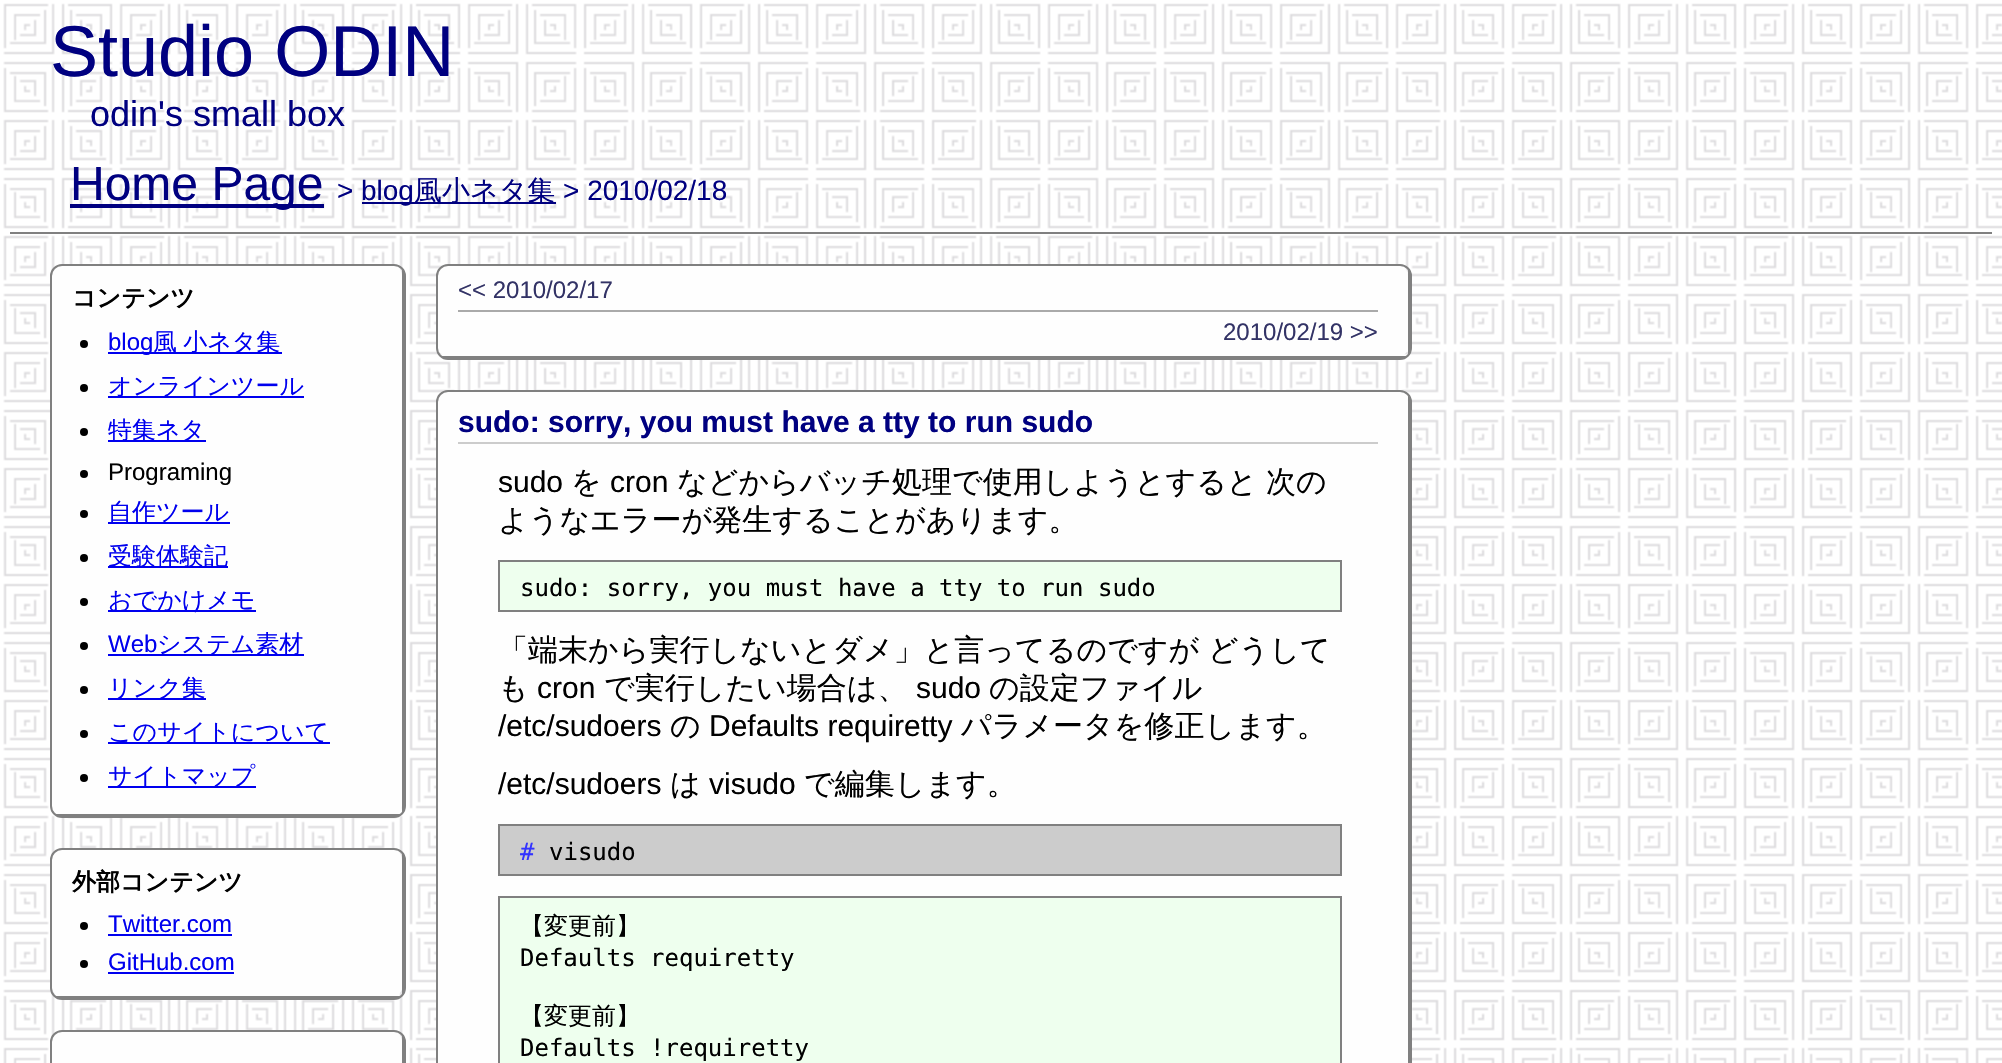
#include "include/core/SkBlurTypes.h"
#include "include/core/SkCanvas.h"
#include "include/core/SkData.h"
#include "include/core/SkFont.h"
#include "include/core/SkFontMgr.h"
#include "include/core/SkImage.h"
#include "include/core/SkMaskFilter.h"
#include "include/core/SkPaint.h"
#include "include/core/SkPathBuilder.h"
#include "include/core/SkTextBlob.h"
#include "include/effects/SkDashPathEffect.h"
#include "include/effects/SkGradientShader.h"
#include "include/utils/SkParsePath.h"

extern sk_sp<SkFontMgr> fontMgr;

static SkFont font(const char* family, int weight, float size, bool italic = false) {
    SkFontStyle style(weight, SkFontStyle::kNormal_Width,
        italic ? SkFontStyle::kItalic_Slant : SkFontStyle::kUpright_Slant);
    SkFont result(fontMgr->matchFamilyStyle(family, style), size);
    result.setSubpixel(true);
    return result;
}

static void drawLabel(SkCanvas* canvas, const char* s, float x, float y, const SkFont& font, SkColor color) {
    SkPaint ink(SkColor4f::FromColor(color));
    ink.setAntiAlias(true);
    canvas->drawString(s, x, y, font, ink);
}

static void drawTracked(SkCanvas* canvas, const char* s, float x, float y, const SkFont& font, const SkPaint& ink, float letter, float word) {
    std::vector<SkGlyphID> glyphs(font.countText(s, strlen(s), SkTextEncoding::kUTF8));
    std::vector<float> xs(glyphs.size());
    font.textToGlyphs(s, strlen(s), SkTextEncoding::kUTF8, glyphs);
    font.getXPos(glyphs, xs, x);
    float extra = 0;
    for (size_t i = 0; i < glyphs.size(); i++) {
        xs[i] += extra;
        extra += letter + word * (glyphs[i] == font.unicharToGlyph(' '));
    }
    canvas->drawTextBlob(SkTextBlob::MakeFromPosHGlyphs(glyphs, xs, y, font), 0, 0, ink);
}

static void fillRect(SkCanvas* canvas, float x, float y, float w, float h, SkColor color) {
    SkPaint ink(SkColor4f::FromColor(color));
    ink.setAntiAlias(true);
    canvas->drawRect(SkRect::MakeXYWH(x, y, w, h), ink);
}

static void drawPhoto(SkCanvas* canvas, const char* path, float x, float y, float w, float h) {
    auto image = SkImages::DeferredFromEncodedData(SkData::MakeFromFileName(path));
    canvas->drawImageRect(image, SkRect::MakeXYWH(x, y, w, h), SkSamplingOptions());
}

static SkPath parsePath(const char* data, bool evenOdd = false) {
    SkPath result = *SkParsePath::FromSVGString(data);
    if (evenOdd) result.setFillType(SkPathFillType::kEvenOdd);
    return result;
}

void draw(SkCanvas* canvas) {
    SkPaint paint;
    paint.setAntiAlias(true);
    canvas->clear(0xFFFFFFFF);
    drawPhoto(canvas, "assets/img1.png", 0, 0, 2002, 1063);
    fillRect(canvas, 10, 232, 1982, 2, 0xFF808080);
    SkFont font1 = font("Liberation Sans", 400, 72);
    drawLabel(canvas, "Studio ODIN", 50, 76, font1, 0xFF000080);
    SkFont font2 = font("Liberation Sans", 400, 36);
    drawLabel(canvas, "odin's small box", 90, 126, font2, 0xFF000080);
    fillRect(canvas, 70, 204, 254, 4, 0xFF000080);
    SkFont font3 = font("Liberation Sans", 400, 48);
    drawLabel(canvas, "Home Page", 70, 200, font3, 0xFF000080);
    SkFont font4 = font("Liberation Sans", 400, 28);
    drawLabel(canvas, ">", 337, 200, font4, 0xFF000080);
    fillRect(canvas, 362, 202, 194, 2, 0xFF000080);
    drawLabel(canvas, "blog", 361, 200, font4, 0xFF000080);
    SkFont font5 = font("WenQuanYi Zen Hei", 500, 28);
    drawLabel(canvas, "風小ネタ集", 414, 200, font5, 0xFF000080);
    drawLabel(canvas, "> 2010/02/18", 563, 200, font4, 0xFF000080);
    paint.setColor(0xFFFEFEFE);
    canvas->drawPath(parsePath("M62 266H394C398 266 402 270 402 276V806C402 810 398 814 394 814H62C56 814 52 810 52 806V276C52 270 56 266 62 266Z"), paint);
    paint.setStroke(true);
    paint.setStrokeWidth(2);
    paint.setColor(0xFF808080);
    canvas->drawRoundRect(SkRect::MakeXYWH(51, 265, 354, 552), 11, 11, paint);
    fillRect(canvas, 402, 270, 2, 542, 0xFF808080);
    fillRect(canvas, 56, 814, 344, 2, 0xFF808080);
    SkFont font6 = font("WenQuanYi Zen Hei", 700, 24);
    drawLabel(canvas, "コンテンツ", 72, 306, font6, 0xFF000000);
    paint.setStroke(false);
    paint.setColor(0xFF000000);
    canvas->drawCircle(84, 344, 4, paint);
    fillRect(canvas, 108, 352, 174, 2, 0xFF0000EE);
    SkFont font7 = font("Liberation Sans", 400, 24);
    drawLabel(canvas, "blog", 108, 350, font7, 0xFF0000EE);
    SkFont font8 = font("WenQuanYi Zen Hei", 500, 24);
    paint.setColor(0xFF0000EE);
    drawTracked(canvas, "風 小ネタ集", 153, 350, font8, paint, 0, -1);
    paint.setColor(0xFF000000);
    canvas->drawCircle(84, 388, 4, paint);
    fillRect(canvas, 108, 396, 196, 2, 0xFF0000EE);
    drawLabel(canvas, "オンラインツール", 108, 394, font8, 0xFF0000EE);
    canvas->drawCircle(84, 432, 4, paint);
    fillRect(canvas, 108, 440, 98, 2, 0xFF0000EE);
    drawLabel(canvas, "特集ネタ", 108, 438, font8, 0xFF0000EE);
    canvas->drawCircle(84, 474, 4, paint);
    drawLabel(canvas, "Programing", 108, 480, font7, 0xFF000000);
    canvas->drawCircle(84, 514, 4, paint);
    fillRect(canvas, 108, 522, 122, 2, 0xFF0000EE);
    drawLabel(canvas, "自作ツール", 108, 520, font8, 0xFF0000EE);
    canvas->drawCircle(84, 558, 4, paint);
    fillRect(canvas, 108, 566, 120, 2, 0xFF0000EE);
    drawLabel(canvas, "受験体験記", 108, 564, font8, 0xFF0000EE);
    canvas->drawCircle(84, 602, 4, paint);
    fillRect(canvas, 108, 610, 148, 2, 0xFF0000EE);
    drawLabel(canvas, "おでかけメモ", 108, 608, font8, 0xFF0000EE);
    canvas->drawCircle(84, 646, 4, paint);
    drawLabel(canvas, "Web", 108, 652, font7, 0xFF0000EE);
    fillRect(canvas, 108, 654, 196, 2, 0xFF0000EE);
    drawLabel(canvas, "システム素材", 157, 652, font8, 0xFF0000EE);
    canvas->drawCircle(84, 690, 4, paint);
    fillRect(canvas, 108, 698, 98, 2, 0xFF0000EE);
    drawLabel(canvas, "リンク集", 108, 696, font8, 0xFF0000EE);
    canvas->drawCircle(84, 734, 4, paint);
    fillRect(canvas, 108, 742, 222, 2, 0xFF0000EE);
    drawLabel(canvas, "このサイトについて", 108, 740, font8, 0xFF0000EE);
    canvas->drawCircle(84, 778, 4, paint);
    fillRect(canvas, 108, 786, 148, 2, 0xFF0000EE);
    drawLabel(canvas, "サイトマップ", 108, 784, font8, 0xFF0000EE);
    paint.setColor(0xFFFEFEFE);
    canvas->drawPath(parsePath("M62 850H394C398 850 402 854 402 860V988C402 992 398 996 394 996H62C56 996 52 992 52 988V860C52 854 56 850 62 850Z"), paint);
    paint.setStroke(true);
    paint.setColor(0xFF808080);
    canvas->drawRoundRect(SkRect::MakeXYWH(51, 849, 354, 150), 11, 11, paint);
    fillRect(canvas, 402, 854, 2, 140, 0xFF808080);
    fillRect(canvas, 56, 996, 344, 2, 0xFF808080);
    drawLabel(canvas, "外部コンテンツ", 72, 890, font6, 0xFF000000);
    paint.setStroke(false);
    paint.setColor(0xFF000000);
    canvas->drawCircle(84, 926, 4, paint);
    drawLabel(canvas, "Twitter.com", 108, 932, font7, 0xFF0000EE);
    fillRect(canvas, 108, 934, 124, 2, 0xFF0000EE);
    canvas->drawCircle(84, 964, 4, paint);
    drawLabel(canvas, "GitHub.com", 108, 970, font7, 0xFF0000EE);
    fillRect(canvas, 108, 972, 126, 2, 0xFF0000EE);
    paint.setColor(0xFFFEFEFE);
    canvas->drawPath(parsePath("M62 1032H394C398 1032 402 1036 402 1042V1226C402 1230 398 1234 394 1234H62C56 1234 52 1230 52 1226V1042C52 1036 56 1032 62 1032Z"), paint);
    paint.setStroke(true);
    paint.setColor(0xFF808080);
    canvas->drawRoundRect(SkRect::MakeXYWH(51, 1031, 354, 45), 11, 11, paint);
    fillRect(canvas, 402, 1036, 2, 27, 0xFF808080);
    paint.setStroke(false);
    paint.setColor(0xFFFEFEFE);
    canvas->drawPath(parsePath("M448 266H1400C1404 266 1408 270 1408 276V348C1408 352 1404 356 1400 356H448C442 356 438 352 438 348V276C438 270 442 266 448 266Z"), paint);
    paint.setStroke(true);
    paint.setColor(0xFF808080);
    canvas->drawRoundRect(SkRect::MakeXYWH(437, 265, 974, 94), 11, 11, paint);
    fillRect(canvas, 1408, 270, 2, 84, 0xFF808080);
    fillRect(canvas, 442, 356, 964, 2, 0xFF808080);
    drawLabel(canvas, "<< 2010/02/17", 458, 298, font7, 0xFF333366);
    fillRect(canvas, 458, 310, 920, 2, 0xFFAAAAAA);
    drawLabel(canvas, "2010/02/19 >>", 1223, 340, font7, 0xFF333366);
    paint.setStroke(false);
    paint.setColor(0xFFFEFEFE);
    canvas->drawPath(parsePath("M448 392H1400C1404 392 1408 396 1408 402V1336C1408 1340 1404 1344 1400 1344H448C442 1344 438 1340 438 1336V402C438 396 442 392 448 392Z"), paint);
    paint.setStroke(true);
    paint.setColor(0xFF808080);
    canvas->drawRoundRect(SkRect::MakeXYWH(437, 391, 974, 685), 11, 11, paint);
    fillRect(canvas, 1408, 396, 2, 667, 0xFF808080);
    fillRect(canvas, 458, 442, 920, 2, 0xFFCCCCCC);
    SkFont font9 = font("Liberation Sans", 700, 30);
    drawLabel(canvas, "sudo: sorry, you must have a tty to run sudo", 458, 432, font9, 0xFF000080);
    SkFont font10 = font("Liberation Sans", 400, 30);
    drawLabel(canvas, "sudo", 498, 492, font10, 0xFF000000);
    SkFont font11 = font("WenQuanYi Zen Hei", 500, 30);
    drawLabel(canvas, "を", 571, 492, font11, 0xFF000000);
    drawLabel(canvas, "cron", 610, 492, font10, 0xFF000000);
    drawLabel(canvas, "などからバッチ処理で使用しようとすると", 677, 492, font11, 0xFF000000);
    drawLabel(canvas, "次の", 1266, 492, font11, 0xFF000000);
    drawLabel(canvas, "ようなエラーが発生することがあります。", 498, 530, font11, 0xFF000000);
    paint.setStroke(false);
    paint.setColor(0xFFEEFFEE);
    canvas->drawRect(SkRect::MakeXYWH(499, 561, 842, 50), paint);
    paint.setStroke(true);
    paint.setColor(0xFF808080);
    canvas->drawRect(SkRect::MakeXYWH(499, 561, 842, 50), paint);
    SkFont font12 = font("DejaVu Sans Mono", 400, 24);
    drawLabel(canvas, "sudo: sorry, you must have a tty to run sudo", 520, 596, font12, 0xFF000000);
    drawLabel(canvas, "「端末から実行しないとダメ」と言ってるのですが", 498, 660, font11, 0xFF000000);
    drawLabel(canvas, "どうして", 1208, 660, font11, 0xFF000000);
    drawLabel(canvas, "も", 498, 698, font11, 0xFF000000);
    drawLabel(canvas, "cron", 537, 698, font10, 0xFF000000);
    drawLabel(canvas, "で実行したい場合は、", 604, 698, font11, 0xFF000000);
    drawLabel(canvas, "sudo", 916, 698, font10, 0xFF000000);
    drawLabel(canvas, "の設定ファイル", 989, 698, font11, 0xFF000000);
    drawLabel(canvas, "/etc/sudoers", 498, 736, font10, 0xFF000000);
    drawLabel(canvas, "の", 670, 736, font11, 0xFF000000);
    drawLabel(canvas, "Defaults requiretty", 709, 736, font10, 0xFF000000);
    drawLabel(canvas, "パラメータを修正します。", 961, 736, font11, 0xFF000000);
    drawLabel(canvas, "/etc/sudoers", 498, 794, font10, 0xFF000000);
    drawLabel(canvas, "は", 670, 794, font11, 0xFF000000);
    drawLabel(canvas, "visudo", 709, 794, font10, 0xFF000000);
    drawLabel(canvas, "で編集します。", 804, 794, font11, 0xFF000000);
    paint.setStroke(false);
    paint.setColor(0xFFCCCCCC);
    canvas->drawRect(SkRect::MakeXYWH(499, 825, 842, 50), paint);
    paint.setStroke(true);
    paint.setColor(0xFF808080);
    canvas->drawRect(SkRect::MakeXYWH(499, 825, 842, 50), paint);
    drawLabel(canvas, "#", 520, 860, font12, 0xFF3333FF);
    drawLabel(canvas, "visudo", 549, 860, font12, 0xFF000000);
    paint.setStroke(false);
    paint.setColor(0xFFEEFFEE);
    canvas->drawRect(SkRect::MakeXYWH(499, 897, 842, 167), paint);
    paint.setStroke(true);
    paint.setColor(0xFF808080);
    canvas->drawRect(SkRect::MakeXYWH(499, 897, 842, 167), paint);
    drawLabel(canvas, "【変更前】", 520, 934, font8, 0xFF000000);
    drawLabel(canvas, "Defaults requiretty", 520, 966, font12, 0xFF000000);
    drawLabel(canvas, "【変更前】", 520, 1024, font8, 0xFF000000);
    drawLabel(canvas, "Defaults !requiretty", 520, 1056, font12, 0xFF000000);
}
